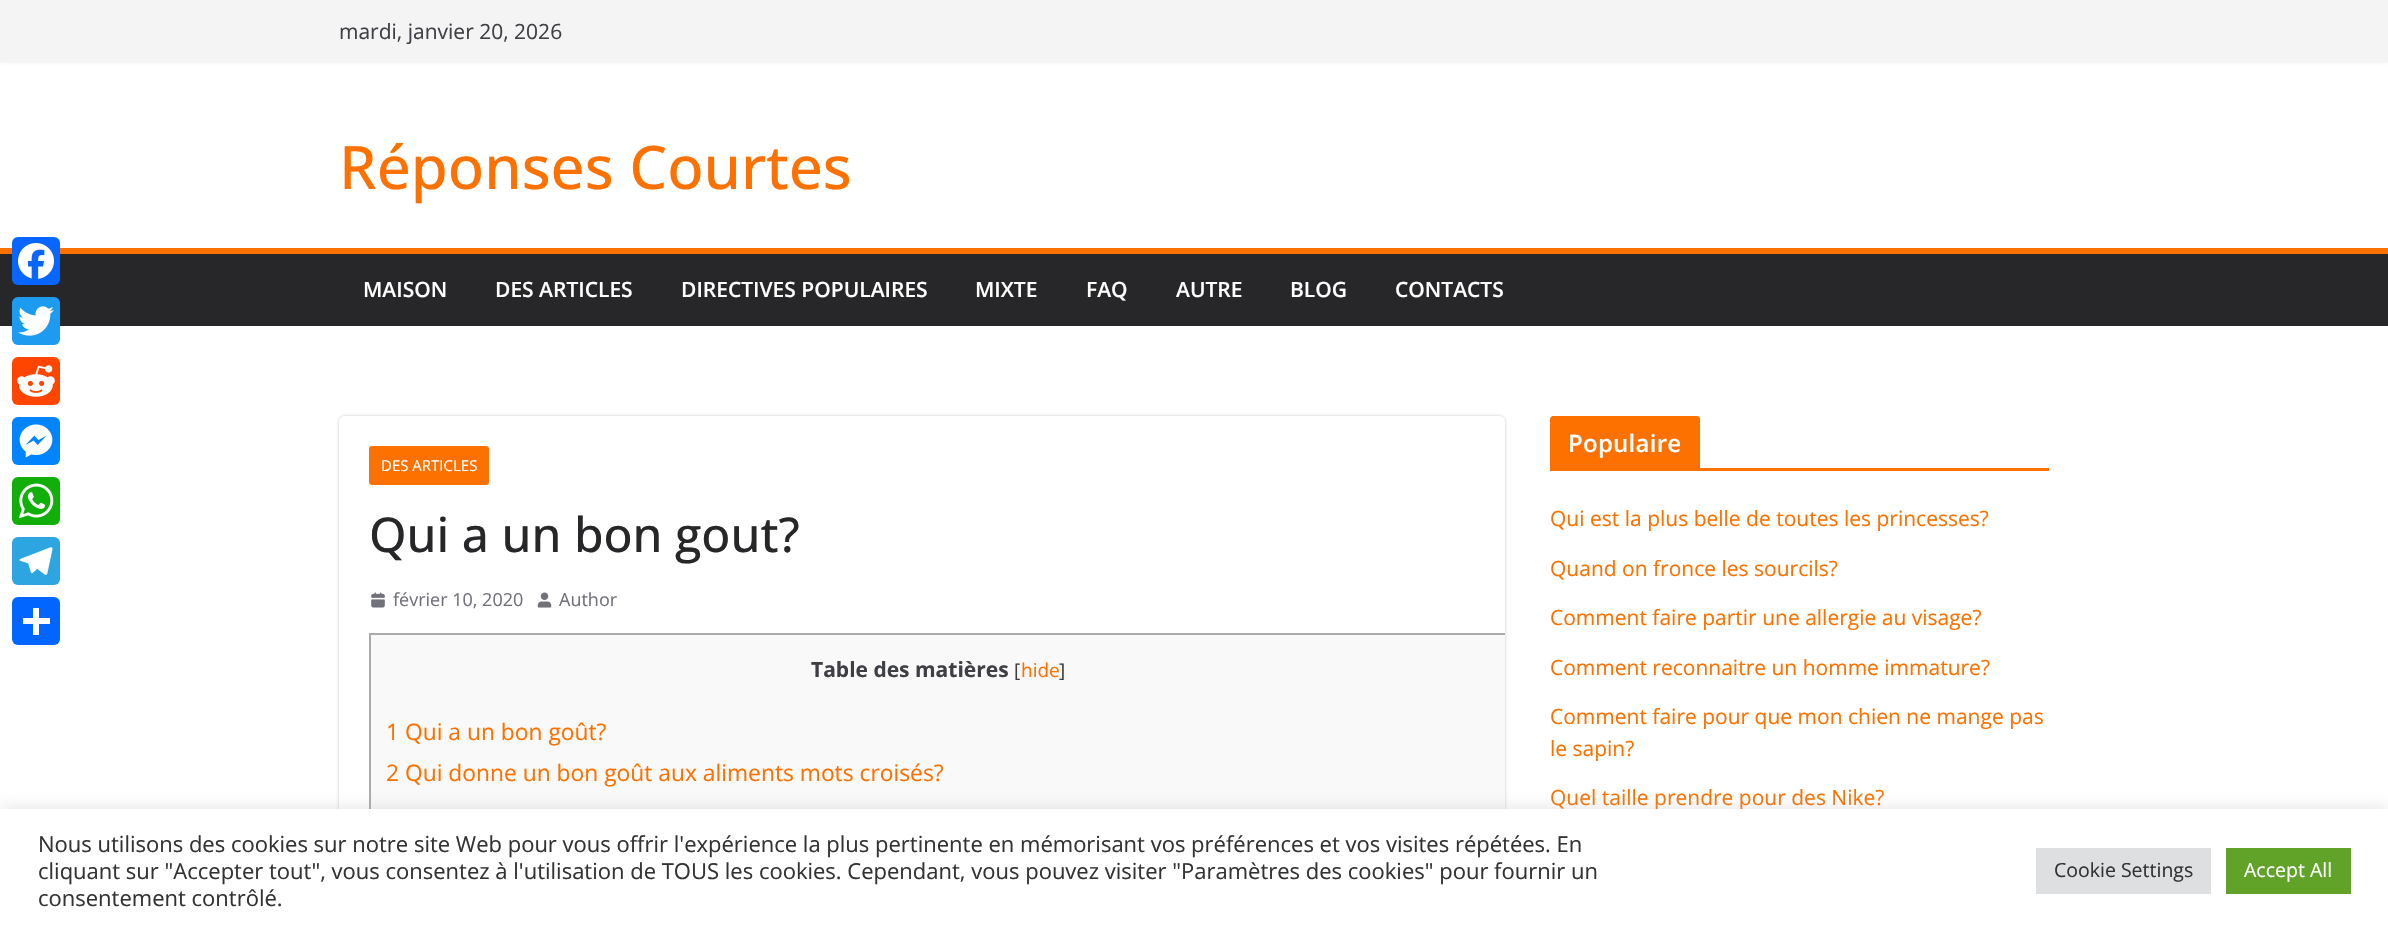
#include "include/core/SkBlurTypes.h"
#include "include/core/SkCanvas.h"
#include "include/core/SkData.h"
#include "include/core/SkFont.h"
#include "include/core/SkFontMgr.h"
#include "include/core/SkImage.h"
#include "include/core/SkMaskFilter.h"
#include "include/core/SkPaint.h"
#include "include/core/SkPathBuilder.h"
#include "include/core/SkTextBlob.h"
#include "include/effects/SkDashPathEffect.h"
#include "include/effects/SkGradientShader.h"
#include "include/utils/SkParsePath.h"

extern sk_sp<SkFontMgr> fontMgr;

static SkFont font(const char* family, int weight, float size, bool italic = false) {
    SkFontStyle style(weight, SkFontStyle::kNormal_Width,
        italic ? SkFontStyle::kItalic_Slant : SkFontStyle::kUpright_Slant);
    SkFont result(fontMgr->matchFamilyStyle(family, style), size);
    result.setSubpixel(true);
    return result;
}

static void drawLabel(SkCanvas* canvas, const char* s, float x, float y, const SkFont& font, SkColor color) {
    SkPaint ink(SkColor4f::FromColor(color));
    ink.setAntiAlias(true);
    canvas->drawString(s, x, y, font, ink);
}

static void drawTracked(SkCanvas* canvas, const char* s, float x, float y, const SkFont& font, const SkPaint& ink, float letter, float word) {
    std::vector<SkGlyphID> glyphs(font.countText(s, strlen(s), SkTextEncoding::kUTF8));
    std::vector<float> xs(glyphs.size());
    font.textToGlyphs(s, strlen(s), SkTextEncoding::kUTF8, glyphs);
    font.getXPos(glyphs, xs, x);
    float extra = 0;
    for (size_t i = 0; i < glyphs.size(); i++) {
        xs[i] += extra;
        extra += letter + word * (glyphs[i] == font.unicharToGlyph(' '));
    }
    canvas->drawTextBlob(SkTextBlob::MakeFromPosHGlyphs(glyphs, xs, y, font), 0, 0, ink);
}

static void fillRect(SkCanvas* canvas, float x, float y, float w, float h, SkColor color) {
    SkPaint ink(SkColor4f::FromColor(color));
    ink.setAntiAlias(true);
    canvas->drawRect(SkRect::MakeXYWH(x, y, w, h), ink);
}

static void fillRRect(SkCanvas* canvas, float x, float y, float w, float h, float radius, SkColor color) {
    SkPaint ink(SkColor4f::FromColor(color));
    ink.setAntiAlias(true);
    canvas->drawRoundRect(SkRect::MakeXYWH(x, y, w, h), radius, radius, ink);
}

static void drawPhoto(SkCanvas* canvas, const char* path, float x, float y, float w, float h) {
    auto image = SkImages::DeferredFromEncodedData(SkData::MakeFromFileName(path));
    canvas->drawImageRect(image, SkRect::MakeXYWH(x, y, w, h), SkSamplingOptions());
}

static SkPath parsePath(const char* data, bool evenOdd = false) {
    SkPath result = *SkParsePath::FromSVGString(data);
    if (evenOdd) result.setFillType(SkPathFillType::kEvenOdd);
    return result;
}

void draw(SkCanvas* canvas) {
    SkPaint paint;
    paint.setAntiAlias(true);
    canvas->clear(0xFFFFFFFF);
    fillRect(canvas, 0, 254, 2388, 72, 0xFF27272A);
    fillRect(canvas, 0, 248, 2388, 6, 0xFFFC7100);
    fillRRect(canvas, 12, 237, 48, 48, 6, 0xFF0866FF);
    drawPhoto(canvas, "assets/img1.png", 18, 243, 36, 36);
    fillRRect(canvas, 12, 297, 48, 48, 6, 0xFF1D9BF0);
    drawPhoto(canvas, "assets/img2.png", 18, 306, 36, 30);
    fillRRect(canvas, 12, 357, 48, 48, 6, 0xFFFF4500);
    drawPhoto(canvas, "assets/img3.png", 17, 365, 38, 32);
    fillRRect(canvas, 12, 417, 48, 48, 6, 0xFF0084FF);
    drawPhoto(canvas, "assets/img4.png", 19, 424, 34, 34);
    fillRRect(canvas, 12, 477, 48, 48, 6, 0xFF12AF0A);
    drawPhoto(canvas, "assets/img5.png", 18, 483, 36, 36);
    fillRRect(canvas, 12, 537, 48, 48, 6, 0xFF2CA5E0);
    drawPhoto(canvas, "assets/img6.png", 19, 547, 34, 28);
    fillRRect(canvas, 12, 597, 48, 48, 6, 0xFF0166FF);
    fillRect(canvas, 33, 608, 6, 27, 0xFFFFFFFF);
    fillRect(canvas, 23, 618, 27, 6, 0xFFFFFFFF);
    paint.setColor(0x1A000000);
    paint.setMaskFilter(SkMaskFilter::MakeBlur(kNormal_SkBlurStyle, 1.5f));
    canvas->drawRect(SkRect::MakeXYWH(0, 0, 2388, 62), paint);
    paint.setMaskFilter(nullptr);
    fillRect(canvas, 0, 0, 2388, 62, 0xFFF4F4F5);
    SkFont font1 = font("Open Sans", 400, 21);
    drawLabel(canvas, "mardi, janvier 20, 2026", 339, 39, font1, 0xFF3F3F46);
    SkFont font2 = font("Open Sans", 500, 60);
    drawLabel(canvas, "Réponses Courtes", 339, 189, font2, 0xFFFC7100);
    SkFont font3 = font("Open Sans", 600, 21);
    drawLabel(canvas, "MAISON", 363, 297, font3, 0xFFFFFFFF);
    drawLabel(canvas, "DES ARTICLES", 495, 297, font3, 0xFFFFFFFF);
    drawLabel(canvas, "DIRECTIVES POPULAIRES", 681, 297, font3, 0xFFFFFFFF);
    drawLabel(canvas, "MIXTE", 975, 297, font3, 0xFFFFFFFF);
    drawLabel(canvas, "FAQ", 1086, 297, font3, 0xFFFFFFFF);
    drawLabel(canvas, "AUTRE", 1176, 297, font3, 0xFFFFFFFF);
    drawLabel(canvas, "BLOG", 1290, 297, font3, 0xFFFFFFFF);
    drawLabel(canvas, "CONTACTS", 1395, 297, font3, 0xFFFFFFFF);
    canvas->save();
    canvas->clipPath(parsePath("M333 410H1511V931H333ZM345 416H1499C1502.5 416 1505 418.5 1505 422V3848C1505 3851.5 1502.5 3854 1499 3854H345C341.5 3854 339 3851.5 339 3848V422C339 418.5 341.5 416 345 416Z", true), true);
    paint.setColor(0x3D000000);
    paint.setMaskFilter(SkMaskFilter::MakeBlur(kNormal_SkBlurStyle, 1.5f));
    canvas->drawRoundRect(SkRect::MakeXYWH(339, 416, 1166, 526), 6, 6, paint);
    paint.setMaskFilter(nullptr);
    canvas->restore();
    fillRRect(canvas, 369, 446, 120, 39, 3, 0xFFFC7100);
    SkFont font4 = font("Open Sans", 400, 15);
    drawLabel(canvas, "DES ARTICLES", 381, 471, font4, 0xFFFFFFFF);
    SkFont font5 = font("Open Sans", 500, 48);
    drawLabel(canvas, "Qui a un bon gout?", 369, 552, font5, 0xFF27272A);
    drawPhoto(canvas, "assets/img7.png", 371, 592, 14, 16);
    SkFont font6 = font("Open Sans", 400, 18);
    drawLabel(canvas, "février 10, 2020", 393, 606, font6, 0xFF71717A);
    drawPhoto(canvas, "assets/img8.png", 537, 592, 15, 16);
    drawLabel(canvas, "Author", 559, 606, font6, 0xFF71717A);
    fillRect(canvas, 371, 635, 1134, 174, 0xFFF9F9F9);
    paint.setColor(0xFFAAAAAA);
    canvas->drawPath(parsePath("M369 633V893H1505V891H371V635H1505V633Z"), paint);
    SkFont font7 = font("Open Sans", 700, 21);
    drawLabel(canvas, "Table des matières", 811, 677, font7, 0xFF3F3F46);
    SkFont font8 = font("Open Sans", 400, 19);
    drawLabel(canvas, "[", 1014, 677, font8, 0xFF3F3F46);
    drawLabel(canvas, "hide", 1021, 677, font8, 0xFFFC7100);
    drawLabel(canvas, "]", 1059, 677, font8, 0xFF3F3F46);
    SkFont font9 = font("Open Sans", 400, 22.8f);
    drawLabel(canvas, "1 Qui a un bon goût?", 386, 740, font9, 0xFFFC7100);
    drawLabel(canvas, "2 Qui donne un bon goût aux aliments mots croisés?", 386, 781, font9, 0xFFFC7100);
    fillRect(canvas, 1550, 468, 499, 3, 0xFFFC7100);
    paint.setColor(0xFFFC7100);
    canvas->drawPath(parsePath("M1553 416H1697C1698.5 416 1700 417.5 1700 419V468H1550V419C1550 417.5 1551.5 416 1553 416Z"), paint);
    SkFont font10 = font("Open Sans", 600, 24);
    paint.setColor(0xFFFFFFFF);
    drawTracked(canvas, "Populaire", 1568, 452, font10, paint, 0.25f, 0);
    drawLabel(canvas, "Qui est la plus belle de toutes les princesses?", 1550, 526, font1, 0xFFFC7100);
    drawLabel(canvas, "Quand on fronce les sourcils?", 1550, 576, font1, 0xFFFC7100);
    drawLabel(canvas, "Comment faire partir une allergie au visage?", 1550, 625, font1, 0xFFFC7100);
    drawLabel(canvas, "Comment reconnaitre un homme immature?", 1550, 675, font1, 0xFFFC7100);
    drawLabel(canvas, "Comment faire pour que mon chien ne mange pas", 1550, 724, font1, 0xFFFC7100);
    drawLabel(canvas, "le sapin?", 1550, 756, font1, 0xFFFC7100);
    drawLabel(canvas, "Quel taille prendre pour des Nike?", 1550, 805, font1, 0xFFFC7100);
    paint.setColor(0x4DACABAB);
    paint.setMaskFilter(SkMaskFilter::MakeBlur(kNormal_SkBlurStyle, 7.5f));
    canvas->drawRect(SkRect::MakeXYWH(0, 807, 2388, 123), paint);
    paint.setMaskFilter(nullptr);
    fillRect(canvas, 0, 809, 2388, 122, 0xFFFFFFFF);
    SkFont font11 = font("Open Sans", 400, 22);
    drawLabel(canvas, "Nous utilisons des cookies sur notre site Web pour vous offrir l'expérience la plus pertinente en mémorisant vos préférences et vos visites répétées. En", 38, 852, font11, 0xFF333333);
    drawLabel(canvas, "cliquant sur \"Accepter tout\", vous consentez à l'utilisation de TOUS les cookies. Cependant, vous pouvez visiter \"Paramètres des cookies\" pour fournir un", 38, 879, font11, 0xFF333333);
    drawLabel(canvas, "consentement contrôlé.", 38, 906, font11, 0xFF333333);
    fillRect(canvas, 2036, 848, 175, 46, 0xFFDEDFE0);
    SkFont font12 = font("Open Sans", 400, 19.5f);
    drawLabel(canvas, "Cookie Settings", 2054, 877, font12, 0xFF333333);
    fillRect(canvas, 2226, 848, 125, 46, 0xFF61A229);
    drawLabel(canvas, "Accept All", 2244, 877, font12, 0xFFFFFFFF);
}
